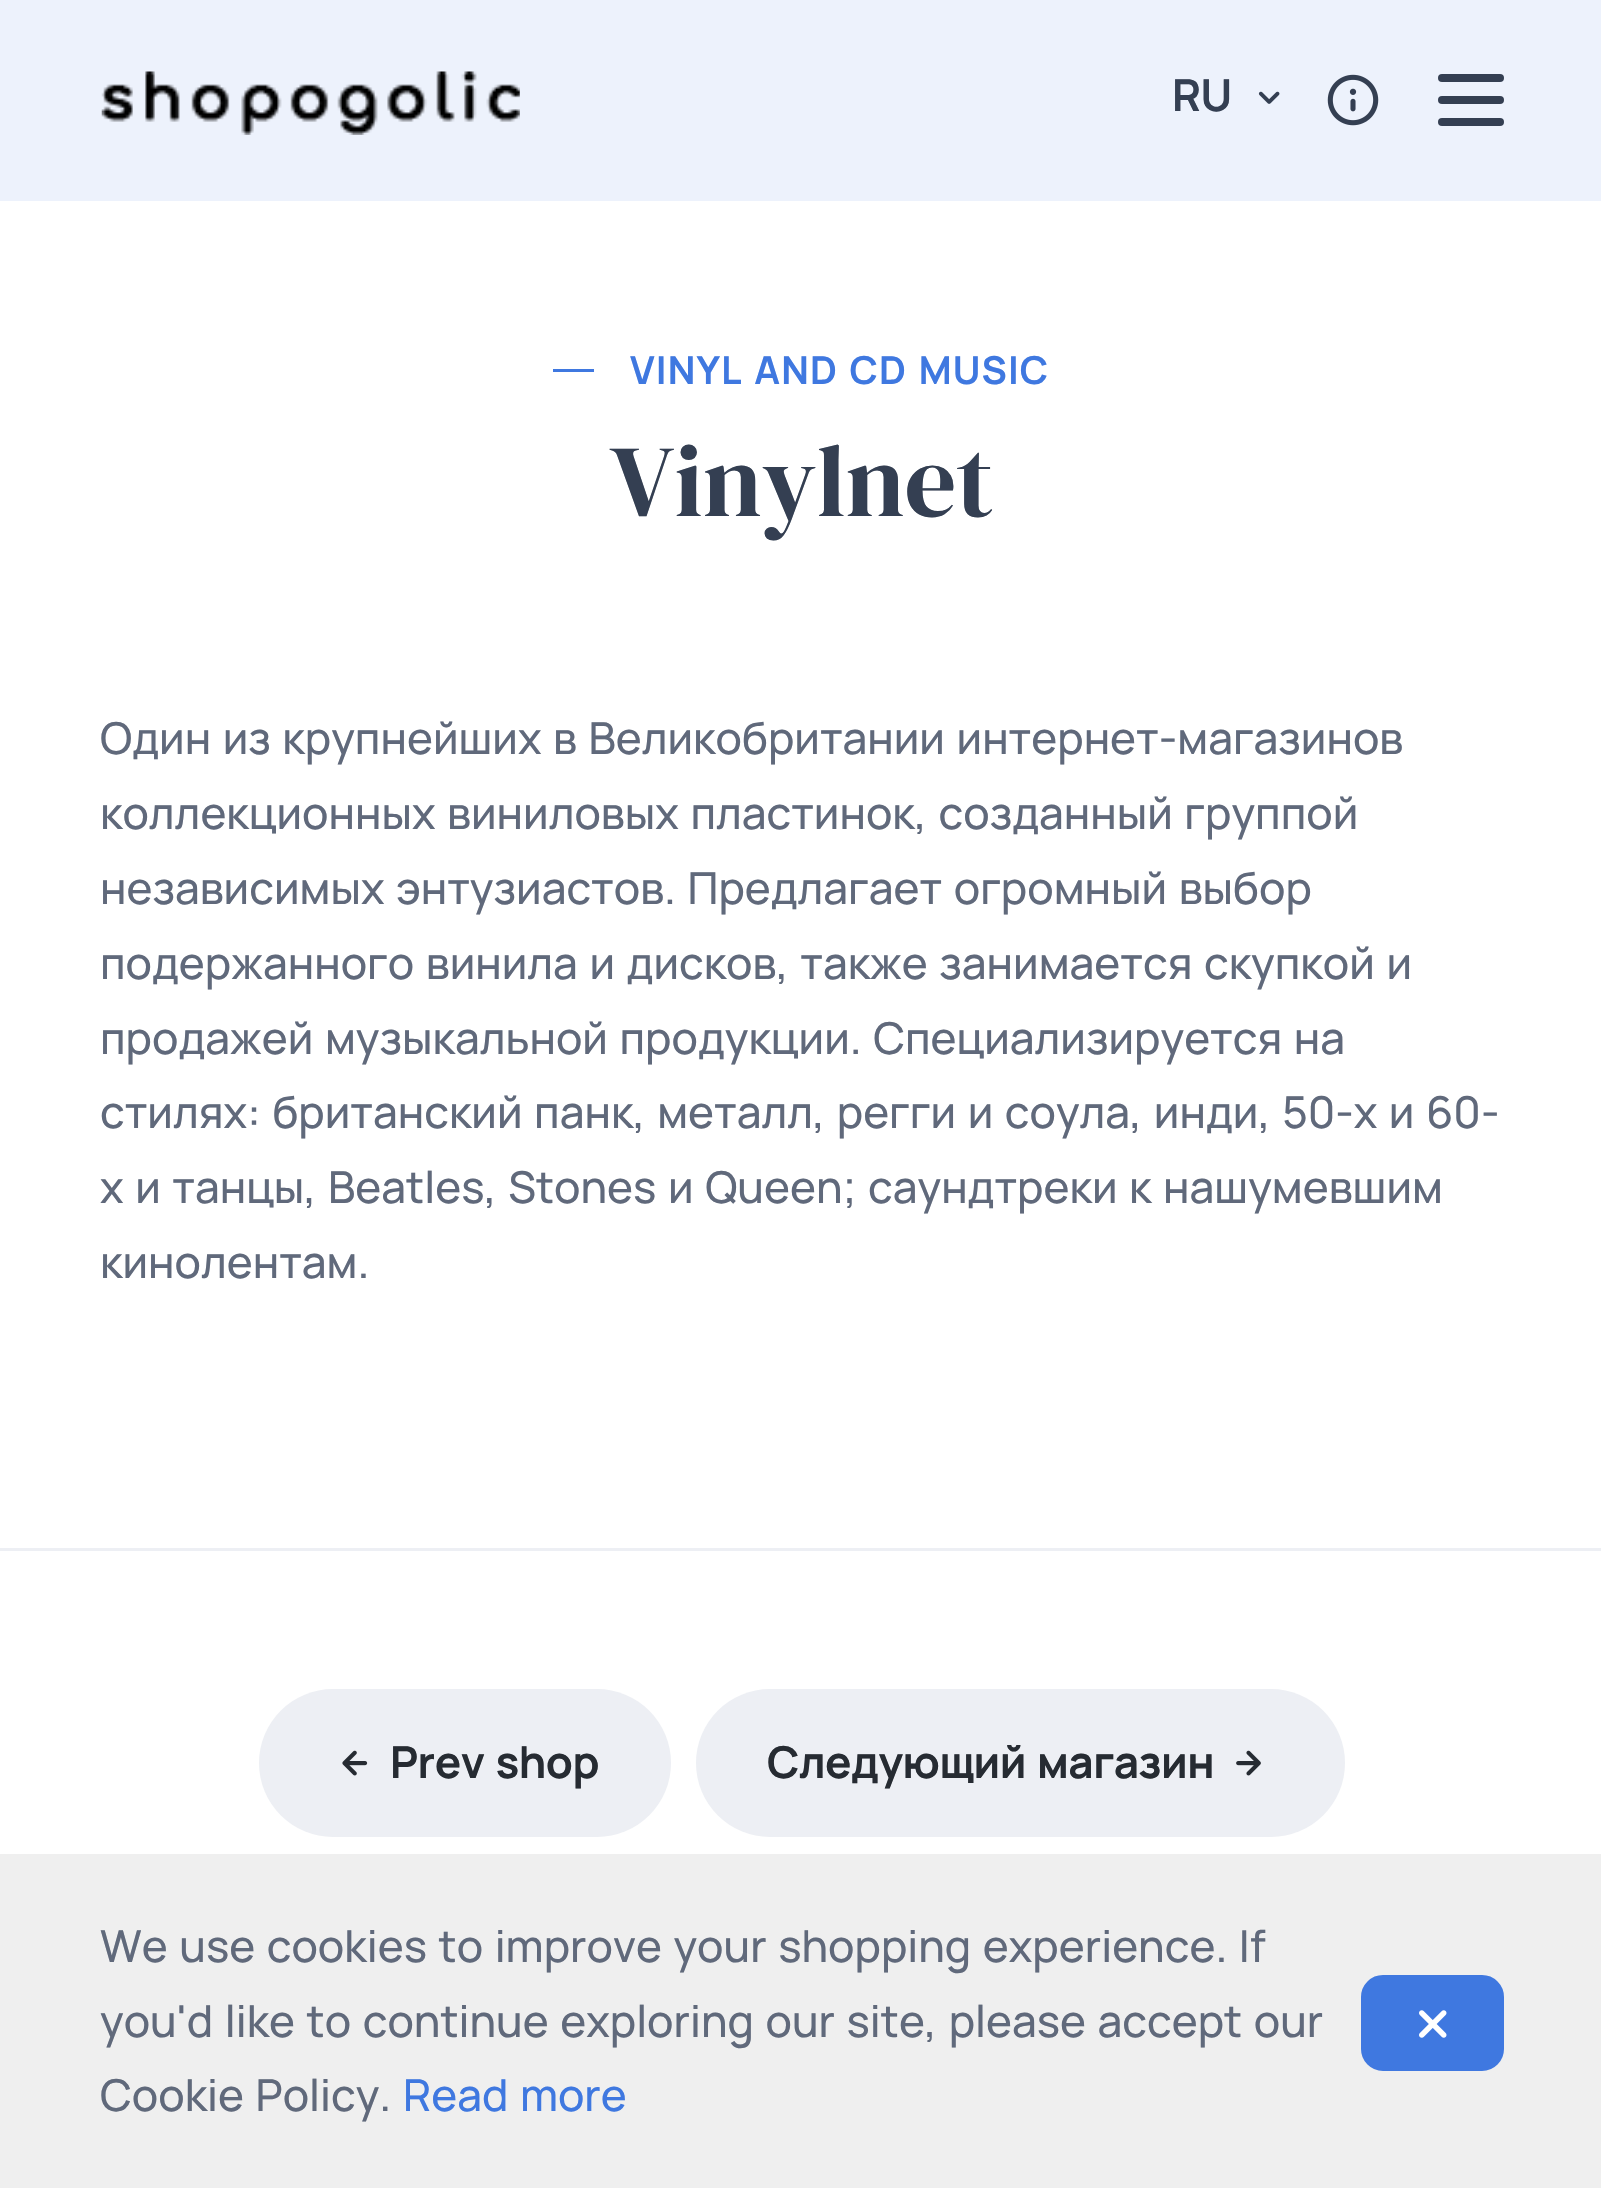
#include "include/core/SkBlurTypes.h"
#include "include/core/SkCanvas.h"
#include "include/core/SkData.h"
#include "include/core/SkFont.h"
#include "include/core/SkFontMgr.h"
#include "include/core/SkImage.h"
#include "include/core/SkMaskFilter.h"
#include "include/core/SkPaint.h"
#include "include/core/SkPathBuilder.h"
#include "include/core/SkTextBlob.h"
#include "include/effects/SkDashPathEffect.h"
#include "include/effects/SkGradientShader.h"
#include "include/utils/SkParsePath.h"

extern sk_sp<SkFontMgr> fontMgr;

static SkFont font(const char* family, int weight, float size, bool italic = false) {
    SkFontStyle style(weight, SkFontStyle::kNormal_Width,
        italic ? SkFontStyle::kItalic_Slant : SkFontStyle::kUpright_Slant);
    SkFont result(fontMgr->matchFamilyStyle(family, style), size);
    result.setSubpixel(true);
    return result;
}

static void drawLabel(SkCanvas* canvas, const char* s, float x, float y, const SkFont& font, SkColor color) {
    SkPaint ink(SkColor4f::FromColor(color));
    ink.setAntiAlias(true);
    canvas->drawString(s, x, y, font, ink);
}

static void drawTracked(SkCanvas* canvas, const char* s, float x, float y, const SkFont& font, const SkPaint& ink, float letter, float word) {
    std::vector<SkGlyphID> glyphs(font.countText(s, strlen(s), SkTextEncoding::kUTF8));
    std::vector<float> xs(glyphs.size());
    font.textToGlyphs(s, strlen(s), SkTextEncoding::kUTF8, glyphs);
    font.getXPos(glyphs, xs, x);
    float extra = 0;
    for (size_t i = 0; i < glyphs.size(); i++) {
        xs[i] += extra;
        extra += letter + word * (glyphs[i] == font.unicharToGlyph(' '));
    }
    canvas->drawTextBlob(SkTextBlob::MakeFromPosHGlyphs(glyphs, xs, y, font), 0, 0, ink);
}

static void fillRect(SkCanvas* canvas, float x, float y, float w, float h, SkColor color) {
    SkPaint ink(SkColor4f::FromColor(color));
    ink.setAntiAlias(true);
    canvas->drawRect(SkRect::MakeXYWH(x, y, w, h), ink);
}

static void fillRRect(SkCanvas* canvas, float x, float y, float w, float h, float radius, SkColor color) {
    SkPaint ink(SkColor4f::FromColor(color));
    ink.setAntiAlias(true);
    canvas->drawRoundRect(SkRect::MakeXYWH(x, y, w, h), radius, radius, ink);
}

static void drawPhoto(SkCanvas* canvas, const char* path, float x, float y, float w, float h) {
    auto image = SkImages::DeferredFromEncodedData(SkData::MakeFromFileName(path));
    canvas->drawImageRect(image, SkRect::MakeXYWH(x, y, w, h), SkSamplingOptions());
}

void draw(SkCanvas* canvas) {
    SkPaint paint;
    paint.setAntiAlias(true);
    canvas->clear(0xFFFFFFFF);
    fillRect(canvas, 0, 0, 1601, 201, 0xFFEDF2FC);
    drawPhoto(canvas, "assets/img1.png", 101, 71, 419, 64);
    SkFont font1 = font("Manrope", 700, 44);
    paint.setColor(0xFF343F52);
    drawTracked(canvas, "RU", 1172, 111, font1, paint, -0.5f, 0);
    drawPhoto(canvas, "assets/img2.png", 1258, 91, 22, 13);
    drawPhoto(canvas, "assets/img3.png", 1327, 74, 52, 52);
    fillRRect(canvas, 1438, 74, 66, 8, 4, 0xFF343F52);
    fillRRect(canvas, 1438, 96, 66, 8, 4, 0xFF343F52);
    fillRRect(canvas, 1438, 118, 66, 8, 4, 0xFF343F52);
    fillRect(canvas, 553, 369, 41, 3, 0xFF3F78E0);
    SkFont font2 = font("Manrope", 700, 38.5f);
    paint.setColor(0xFF3F78E0);
    drawTracked(canvas, "VINYL AND CD MUSIC", 630, 384, font2, paint, 1.1f, 2.75f);
    SkFont font3 = font("DM Serif Display", 400, 102);
    drawLabel(canvas, "Vinylnet", 610, 516, font3, 0xFF343F52);
    fillRect(canvas, 0, 1548, 1601, 3, 0xFFEDEFF4);
    SkFont font4 = font("Manrope", 500, 44);
    paint.setColor(0xFF60697B);
    drawTracked(canvas, "Один из крупнейших в Великобритании интернет-магазинов", 100, 754, font4, paint, 0, 2.75f);
    drawTracked(canvas, "коллекционных виниловых пластинок, созданный группой", 100, 829, font4, paint, 0, 2.75f);
    drawTracked(canvas, "независимых энтузиастов. Предлагает огромный выбор", 100, 904, font4, paint, 0, 2.75f);
    drawTracked(canvas, "подержанного винила и дисков, также занимается скупкой и", 100, 979, font4, paint, 0, 2.75f);
    drawTracked(canvas, "продажей музыкальной продукции. Специализируется на", 100, 1054, font4, paint, 0, 2.75f);
    drawTracked(canvas, "стилях: британский панк, металл, регги и соула, инди, 50-х и 60-", 100, 1128, font4, paint, 0, 2.75f);
    drawTracked(canvas, "х и танцы, Beatles, Stones и Queen; саундтреки к нашумевшим", 100, 1203, font4, paint, 0, 2.75f);
    drawLabel(canvas, "кинолентам.", 100, 1278, font4, 0xFF60697B);
    fillRRect(canvas, 259, 1689, 412, 148, 74, 0xFFEDEFF4);
    drawPhoto(canvas, "assets/img4.png", 342, 1750, 26, 26);
    paint.setColor(0xFF262B32);
    drawTracked(canvas, "Prev shop", 390, 1778, font1, paint, -0.5f, 2.75f);
    fillRRect(canvas, 696, 1689, 649, 148, 74, 0xFFEDEFF4);
    drawTracked(canvas, "Следующий магазин", 767, 1778, font1, paint, -0.5f, 2.75f);
    drawPhoto(canvas, "assets/img5.png", 1236, 1750, 25, 26);
    fillRect(canvas, 0, 1854, 1601, 334, 0xFFEFEFEF);
    paint.setColor(0xFF60697B);
    drawTracked(canvas, "We use cookies to improve your shopping experience. If", 100, 1962, font4, paint, 0, 2.75f);
    drawTracked(canvas, "you'd like to continue exploring our site, please accept our", 100, 2037, font4, paint, 0, 2.75f);
    paint.setColor(0xFF3F78E0);
    canvas->drawRoundRect(SkRect::MakeXYWH(1364, 1978, 137, 90), 19, 19, paint);
    paint.setStroke(true);
    paint.setStrokeWidth(6);
    canvas->drawRoundRect(SkRect::MakeXYWH(1364, 1978, 137, 90), 19, 19, paint);
    drawPhoto(canvas, "assets/img6.png", 1419, 2010, 28, 28);
    paint.setStroke(false);
    paint.setColor(0xFF60697B);
    drawTracked(canvas, "Cookie Policy.", 100, 2111, font4, paint, 0, 2.75f);
    paint.setColor(0xFF3F78E0);
    drawTracked(canvas, "Read more", 403, 2111, font4, paint, 0, 2.75f);
}
